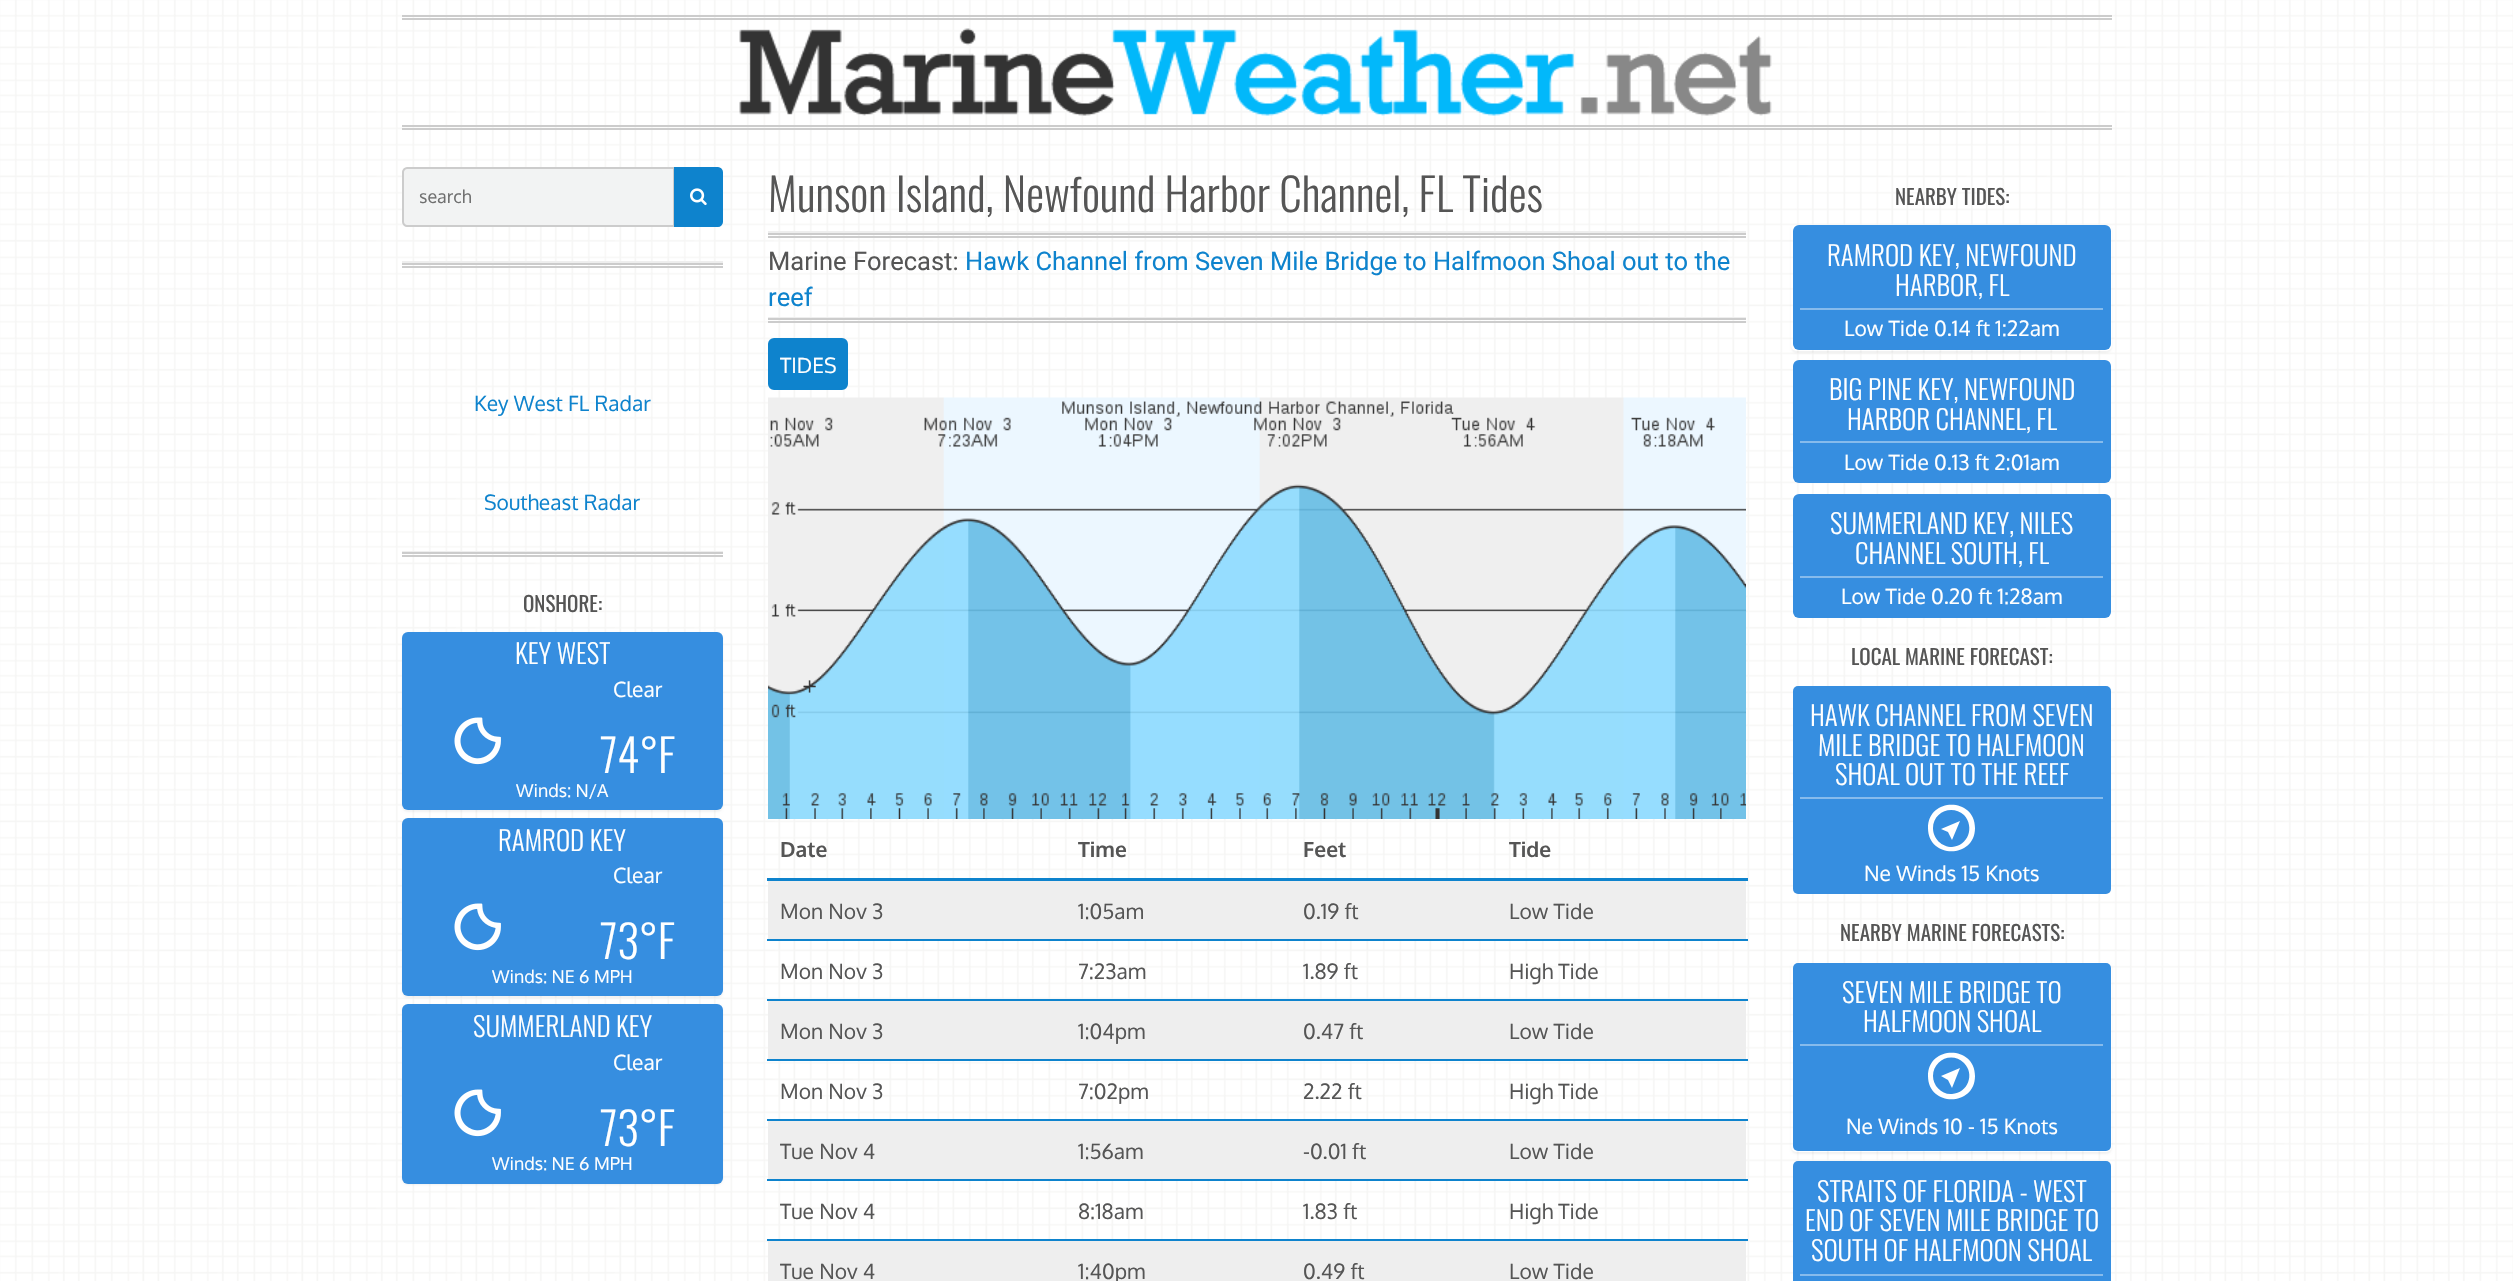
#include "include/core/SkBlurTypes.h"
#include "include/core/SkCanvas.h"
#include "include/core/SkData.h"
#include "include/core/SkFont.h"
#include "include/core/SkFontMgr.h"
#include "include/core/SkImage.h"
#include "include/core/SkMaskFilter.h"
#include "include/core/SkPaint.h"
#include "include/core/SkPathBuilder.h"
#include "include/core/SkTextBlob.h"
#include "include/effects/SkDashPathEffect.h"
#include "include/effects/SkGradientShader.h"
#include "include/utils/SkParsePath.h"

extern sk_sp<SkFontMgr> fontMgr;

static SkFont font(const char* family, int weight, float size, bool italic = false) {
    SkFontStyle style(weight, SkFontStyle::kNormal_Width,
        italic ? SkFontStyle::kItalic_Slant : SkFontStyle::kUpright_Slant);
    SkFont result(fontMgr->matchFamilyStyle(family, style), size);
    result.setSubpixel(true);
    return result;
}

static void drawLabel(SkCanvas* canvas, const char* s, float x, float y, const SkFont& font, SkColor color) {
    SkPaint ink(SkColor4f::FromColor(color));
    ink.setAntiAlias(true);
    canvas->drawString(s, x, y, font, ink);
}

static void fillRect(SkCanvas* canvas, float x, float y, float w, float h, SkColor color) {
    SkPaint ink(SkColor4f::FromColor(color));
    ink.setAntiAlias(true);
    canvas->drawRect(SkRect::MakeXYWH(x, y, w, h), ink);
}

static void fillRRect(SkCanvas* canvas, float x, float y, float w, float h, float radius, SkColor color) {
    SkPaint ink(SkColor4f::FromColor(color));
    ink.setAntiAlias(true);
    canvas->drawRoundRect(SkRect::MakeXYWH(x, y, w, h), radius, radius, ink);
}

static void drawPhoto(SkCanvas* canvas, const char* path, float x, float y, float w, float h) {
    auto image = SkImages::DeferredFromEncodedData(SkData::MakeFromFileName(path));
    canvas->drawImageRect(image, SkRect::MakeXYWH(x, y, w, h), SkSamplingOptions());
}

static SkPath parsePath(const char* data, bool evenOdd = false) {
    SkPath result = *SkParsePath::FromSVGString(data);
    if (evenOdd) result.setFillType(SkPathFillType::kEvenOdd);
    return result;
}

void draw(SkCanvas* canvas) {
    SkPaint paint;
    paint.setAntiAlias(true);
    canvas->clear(0xFFFFFFFF);
    drawPhoto(canvas, "assets/img1.png", 0, 0, 2513, 1281);
    fillRect(canvas, 402, 15, 1710, 2, 0xFFCCCCCC);
    fillRect(canvas, 402, 18, 1710, 2, 0xFFCCCCCC);
    fillRect(canvas, 402, 125, 1710, 2, 0xFFCCCCCC);
    fillRect(canvas, 402, 128, 1710, 2, 0xFFCCCCCC);
    drawPhoto(canvas, "assets/img2.png", 739, 28, 1033, 88);
    paint.setColor(0xFFF2F3F3);
    canvas->drawPath(parsePath("M407 168H674V226H407C405 226 403 224 403 222V172C403 170 405 168 407 168Z"), paint);
    paint.setStroke(true);
    paint.setStrokeWidth(2);
    paint.setColor(0xFFCCCCCC);
    canvas->drawPath(parsePath("M407 168H674V226H407C405 226 403 224 403 222V172C403 170 405 168 407 168Z"), paint);
    SkFont font1 = font("Oxygen", 400, 18);
    drawLabel(canvas, "search", 419, 203, font1, 0xFF6F6F6F);
    paint.setStroke(false);
    paint.setColor(0xFF0E83CD);
    canvas->drawPath(parsePath("M675 168H718C720 168 722 170 722 172V222C722 224 720 226 718 226H675Z"), paint);
    paint.setStroke(true);
    canvas->drawPath(parsePath("M675 168H718C720 168 722 170 722 172V222C722 224 720 226 718 226H675Z"), paint);
    drawPhoto(canvas, "assets/img3.png", 690, 188, 17, 18);
    fillRect(canvas, 402, 261, 321, 2, 0xFFEEEEEE);
    fillRect(canvas, 402, 263, 321, 2, 0xFFCCCCCC);
    fillRect(canvas, 402, 266, 321, 2, 0xFFCCCCCC);
    SkFont font2 = font("Oxygen", 400, 21);
    drawLabel(canvas, "Key West FL Radar", 474, 411, font2, 0xFF0E83CD);
    drawLabel(canvas, "Southeast Radar", 484, 510, font2, 0xFF0E83CD);
    fillRect(canvas, 402, 551, 321, 1, 0xFFEEEEEE);
    fillRect(canvas, 402, 552, 321, 2, 0xFFCCCCCC);
    fillRect(canvas, 402, 555, 321, 2, 0xFFCCCCCC);
    SkFont font3 = font("Oswald", 400, 21);
    drawLabel(canvas, "ONSHORE:", 523, 612, font3, 0xFF555555);
    paint.setStroke(false);
    paint.setColor(0x0D000000);
    paint.setMaskFilter(SkMaskFilter::MakeBlur(kNormal_SkBlurStyle, 1));
    canvas->drawRoundRect(SkRect::MakeXYWH(402, 633, 321, 179), 6, 6, paint);
    paint.setMaskFilter(nullptr);
    fillRRect(canvas, 402, 632, 321, 178, 6, 0xFF368EE0);
    SkFont font4 = font("Oswald", 300, 27);
    drawLabel(canvas, "KEY WEST", 515, 664, font4, 0xFFFFFFFF);
    drawPhoto(canvas, "assets/img4.png", 454, 717, 47, 48);
    drawLabel(canvas, "Clear", 613, 697, font2, 0xFFFFFFFF);
    SkFont font5 = font("Oswald", 300, 45);
    drawLabel(canvas, "74°F", 600, 773, font5, 0xFFFFFFFF);
    SkFont font6 = font("Oxygen", 400, 17.75f);
    drawLabel(canvas, "Winds: N/A", 516, 797, font6, 0xFFFFFFFF);
    paint.setMaskFilter(SkMaskFilter::MakeBlur(kNormal_SkBlurStyle, 1));
    canvas->drawRoundRect(SkRect::MakeXYWH(402, 819, 321, 179), 6, 6, paint);
    paint.setMaskFilter(nullptr);
    fillRRect(canvas, 402, 818, 321, 178, 6, 0xFF368EE0);
    drawLabel(canvas, "RAMROD KEY", 498, 851, font4, 0xFFFFFFFF);
    drawPhoto(canvas, "assets/img4.png", 454, 903, 47, 48);
    drawLabel(canvas, "Clear", 613, 883, font2, 0xFFFFFFFF);
    drawLabel(canvas, "73°F", 600, 959, font5, 0xFFFFFFFF);
    drawLabel(canvas, "Winds: NE 6 MPH", 492, 983, font6, 0xFFFFFFFF);
    paint.setMaskFilter(SkMaskFilter::MakeBlur(kNormal_SkBlurStyle, 1));
    canvas->drawRoundRect(SkRect::MakeXYWH(402, 1005, 321, 180), 6, 6, paint);
    paint.setMaskFilter(nullptr);
    fillRRect(canvas, 402, 1004, 321, 180, 6, 0xFF368EE0);
    drawLabel(canvas, "SUMMERLAND KEY", 473, 1037, font4, 0xFFFFFFFF);
    drawPhoto(canvas, "assets/img4.png", 454, 1089, 47, 48);
    drawLabel(canvas, "Clear", 613, 1070, font2, 0xFFFFFFFF);
    drawLabel(canvas, "73°F", 600, 1146, font5, 0xFFFFFFFF);
    drawLabel(canvas, "Winds: NE 6 MPH", 492, 1170, font6, 0xFFFFFFFF);
    drawLabel(canvas, "Munson Island, Newfound Harbor Channel, FL Tides", 768, 212, font5, 0xFF555555);
    fillRect(canvas, 768, 231, 978, 2, 0xFFEEEEEE);
    fillRect(canvas, 768, 233, 978, 2, 0xFFCCCCCC);
    fillRect(canvas, 768, 236, 978, 2, 0xFFCCCCCC);
    SkFont font7 = font("Roboto", 400, 25.5f);
    drawLabel(canvas, "Marine Forecast:", 768, 270, font7, 0xFF555555);
    drawLabel(canvas, "Hawk Channel from Seven Mile Bridge to Halfmoon Shoal out to the", 965, 270, font7, 0xFF0E83CD);
    drawLabel(canvas, "reef", 768, 306, font7, 0xFF0E83CD);
    fillRect(canvas, 768, 317, 978, 1, 0xFFEEEEEE);
    fillRect(canvas, 768, 318, 978, 2, 0xFFCCCCCC);
    fillRect(canvas, 768, 321, 978, 2, 0xFFCCCCCC);
    paint.setColor(0xFF0E83CD);
    canvas->drawRoundRect(SkRect::MakeXYWH(769, 339, 78, 50), 5, 5, paint);
    paint.setStroke(true);
    canvas->drawRoundRect(SkRect::MakeXYWH(769, 339, 78, 50), 5, 5, paint);
    drawLabel(canvas, "TIDES", 780, 373, font2, 0xFFFFFFFF);
    drawPhoto(canvas, "assets/img5.png", 768, 397, 978, 422);
    SkFont font8 = font("Oxygen", 700, 21);
    drawLabel(canvas, "Date", 780, 857, font8, 0xFF555555);
    drawLabel(canvas, "Time", 1078, 857, font8, 0xFF555555);
    drawLabel(canvas, "Feet", 1303, 857, font8, 0xFF555555);
    fillRect(canvas, 767, 878, 981, 3, 0xFF0E83CD);
    drawLabel(canvas, "Tide", 1509, 857, font8, 0xFF555555);
    fillRect(canvas, 768, 881, 978, 58, 0xFFEEEEEE);
    drawLabel(canvas, "Mon Nov 3", 780, 919, font2, 0xFF555555);
    drawLabel(canvas, "1:05am", 1078, 919, font2, 0xFF555555);
    drawLabel(canvas, "0.19 ft", 1303, 919, font2, 0xFF555555);
    drawLabel(canvas, "Low Tide", 1509, 919, font2, 0xFF555555);
    drawLabel(canvas, "Mon Nov 3", 780, 979, font2, 0xFF555555);
    drawLabel(canvas, "7:23am", 1078, 979, font2, 0xFF555555);
    drawLabel(canvas, "1.89 ft", 1303, 979, font2, 0xFF555555);
    fillRect(canvas, 767, 939, 981, 2, 0xFF0E83CD);
    drawLabel(canvas, "High Tide", 1509, 979, font2, 0xFF555555);
    fillRect(canvas, 768, 1001, 978, 58, 0xFFEEEEEE);
    drawLabel(canvas, "Mon Nov 3", 780, 1039, font2, 0xFF555555);
    drawLabel(canvas, "1:04pm", 1078, 1039, font2, 0xFF555555);
    drawLabel(canvas, "0.47 ft", 1303, 1039, font2, 0xFF555555);
    fillRect(canvas, 767, 999, 981, 2, 0xFF0E83CD);
    drawLabel(canvas, "Low Tide", 1509, 1039, font2, 0xFF555555);
    drawLabel(canvas, "Mon Nov 3", 780, 1099, font2, 0xFF555555);
    drawLabel(canvas, "7:02pm", 1078, 1099, font2, 0xFF555555);
    drawLabel(canvas, "2.22 ft", 1303, 1099, font2, 0xFF555555);
    fillRect(canvas, 767, 1059, 981, 2, 0xFF0E83CD);
    drawLabel(canvas, "High Tide", 1509, 1099, font2, 0xFF555555);
    fillRect(canvas, 768, 1121, 978, 58, 0xFFEEEEEE);
    drawLabel(canvas, "Tue Nov 4", 780, 1159, font2, 0xFF555555);
    drawLabel(canvas, "1:56am", 1078, 1159, font2, 0xFF555555);
    drawLabel(canvas, "-0.01 ft", 1303, 1159, font2, 0xFF555555);
    fillRect(canvas, 767, 1119, 981, 2, 0xFF0E83CD);
    drawLabel(canvas, "Low Tide", 1509, 1159, font2, 0xFF555555);
    drawLabel(canvas, "Tue Nov 4", 780, 1219, font2, 0xFF555555);
    drawLabel(canvas, "8:18am", 1078, 1219, font2, 0xFF555555);
    drawLabel(canvas, "1.83 ft", 1303, 1219, font2, 0xFF555555);
    fillRect(canvas, 767, 1179, 981, 2, 0xFF0E83CD);
    drawLabel(canvas, "High Tide", 1509, 1219, font2, 0xFF555555);
    fillRect(canvas, 768, 1241, 978, 40, 0xFFEEEEEE);
    drawLabel(canvas, "Tue Nov 4", 780, 1279, font2, 0xFF555555);
    drawLabel(canvas, "1:40pm", 1078, 1279, font2, 0xFF555555);
    drawLabel(canvas, "0.49 ft", 1303, 1279, font2, 0xFF555555);
    fillRect(canvas, 767, 1239, 981, 2, 0xFF0E83CD);
    drawLabel(canvas, "Low Tide", 1509, 1279, font2, 0xFF555555);
    drawLabel(canvas, "NEARBY TIDES:", 1895, 205, font3, 0xFF555555);
    canvas->save();
    canvas->clipPath(parsePath("M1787 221H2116V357H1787ZM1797 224H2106C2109.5 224 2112 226.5 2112 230V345C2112 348.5 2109.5 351 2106 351H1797C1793.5 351 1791 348.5 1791 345V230C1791 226.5 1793.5 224 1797 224Z", true), true);
    paint.setStroke(false);
    paint.setColor(0x0D000000);
    paint.setMaskFilter(SkMaskFilter::MakeBlur(kNormal_SkBlurStyle, 1));
    canvas->drawRoundRect(SkRect::MakeXYWH(1791, 225, 321, 128), 6, 6, paint);
    paint.setMaskFilter(nullptr);
    canvas->restore();
    canvas->save();
    canvas->clipPath(parsePath("M1798 225H2106C2109 225 2111 227 2111 230V345C2111 348 2109 350 2106 350H1798C1795 350 1793 348 1793 345V230C1793 227 1795 225 1798 225Z"), true);
    fillRRect(canvas, 1793, 225, 318, 125, 6, 0xFF368EE0);
    canvas->restore();
    drawLabel(canvas, "RAMROD KEY, NEWFOUND", 1827, 266, font4, 0xFFFFFFFF);
    drawLabel(canvas, "HARBOR, FL", 1895, 296, font4, 0xFFFFFFFF);
    fillRect(canvas, 1800, 308, 303, 2, 0xFF86BBEC);
    drawLabel(canvas, "Low Tide 0.14 ft 1:22am", 1844, 336, font2, 0xFFFFFFFF);
    canvas->save();
    canvas->clipPath(parsePath("M1798 360H2106C2109 360 2111 362 2111 365V478C2111 481 2109 483 2106 483H1798C1795 483 1793 481 1793 478V365C1793 362 1795 360 1798 360Z"), true);
    fillRRect(canvas, 1793, 360, 318, 123, 6, 0xFF368EE0);
    canvas->restore();
    drawLabel(canvas, "BIG PINE KEY, NEWFOUND", 1829, 400, font4, 0xFFFFFFFF);
    drawLabel(canvas, "HARBOR CHANNEL, FL", 1847, 430, font4, 0xFFFFFFFF);
    fillRect(canvas, 1800, 441, 303, 2, 0xFF86BBEC);
    drawLabel(canvas, "Low Tide 0.13 ft 2:01am", 1844, 470, font2, 0xFFFFFFFF);
    canvas->save();
    canvas->clipPath(parsePath("M1798 494H2106C2109 494 2111 496 2111 499V613C2111 616 2109 618 2106 618H1798C1795 618 1793 616 1793 613V499C1793 496 1795 494 1798 494Z"), true);
    fillRRect(canvas, 1793, 494, 318, 124, 6, 0xFF368EE0);
    canvas->restore();
    drawLabel(canvas, "SUMMERLAND KEY, NILES", 1830, 534, font4, 0xFFFFFFFF);
    drawLabel(canvas, "CHANNEL SOUTH, FL", 1855, 564, font4, 0xFFFFFFFF);
    fillRect(canvas, 1800, 576, 303, 2, 0xFF86BBEC);
    drawLabel(canvas, "Low Tide 0.20 ft 1:28am", 1841, 604, font2, 0xFFFFFFFF);
    drawLabel(canvas, "LOCAL MARINE FORECAST:", 1851, 665, font3, 0xFF555555);
    fillRRect(canvas, 1793, 686, 318, 208, 5, 0xFF368EE0);
    drawLabel(canvas, "HAWK CHANNEL FROM SEVEN", 1810, 726, font4, 0xFFFFFFFF);
    drawLabel(canvas, "MILE BRIDGE TO HALFMOON", 1818, 756, font4, 0xFFFFFFFF);
    drawLabel(canvas, "SHOAL OUT TO THE REEF", 1835, 785, font4, 0xFFFFFFFF);
    fillRect(canvas, 1800, 797, 303, 2, 0xFF86BBEC);
    paint.setColor(0xFFFFFFFF);
    canvas->drawPath(parsePath("M1928 828C1928 797 1975 797 1975 828C1975 859 1928 859 1928 828ZM1933 828C1933 839 1942 847 1952 847C1968 846 1975 827 1964 815C1952 804 1933 812 1933 828ZM1941 829L1960 821L1952 840L1948 832Z"), paint);
    drawLabel(canvas, "Ne Winds 15 Knots", 1864, 881, font2, 0xFFFFFFFF);
    drawLabel(canvas, "NEARBY MARINE FORECASTS:", 1840, 941, font3, 0xFF555555);
    canvas->save();
    canvas->clipPath(parsePath("M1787 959H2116V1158H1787ZM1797 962H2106C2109.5 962 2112 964.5 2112 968V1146C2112 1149.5 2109.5 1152 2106 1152H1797C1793.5 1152 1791 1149.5 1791 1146V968C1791 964.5 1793.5 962 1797 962Z", true), true);
    paint.setColor(0x0D000000);
    paint.setMaskFilter(SkMaskFilter::MakeBlur(kNormal_SkBlurStyle, 1));
    canvas->drawRoundRect(SkRect::MakeXYWH(1791, 963, 321, 191), 6, 6, paint);
    paint.setMaskFilter(nullptr);
    canvas->restore();
    fillRRect(canvas, 1793, 963, 318, 188, 5, 0xFF368EE0);
    drawLabel(canvas, "SEVEN MILE BRIDGE TO", 1842, 1003, font4, 0xFFFFFFFF);
    drawLabel(canvas, "HALFMOON SHOAL", 1863, 1032, font4, 0xFFFFFFFF);
    fillRect(canvas, 1800, 1044, 303, 2, 0xFF86BBEC);
    paint.setColor(0xFFFFFFFF);
    canvas->drawPath(parsePath("M1928 1076C1928 1045 1975 1045 1975 1076C1975 1107 1928 1107 1928 1076ZM1933 1076C1933 1086 1942 1095 1952 1094C1968 1093 1975 1074 1964 1063C1952 1051 1933 1060 1933 1076ZM1941 1076L1960 1068L1952 1088L1948 1080Z"), paint);
    drawLabel(canvas, "Ne Winds 10 - 15 Knots", 1846, 1134, font2, 0xFFFFFFFF);
    fillRRect(canvas, 1793, 1161, 318, 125, 5, 0xFF368EE0);
    drawLabel(canvas, "STRAITS OF FLORIDA - WEST", 1817, 1202, font4, 0xFFFFFFFF);
    drawLabel(canvas, "END OF SEVEN MILE BRIDGE TO", 1805, 1231, font4, 0xFFFFFFFF);
    drawLabel(canvas, "SOUTH OF HALFMOON SHOAL", 1811, 1261, font4, 0xFFFFFFFF);
    fillRect(canvas, 1800, 1274, 303, 2, 0xFF86BBEC);
}
